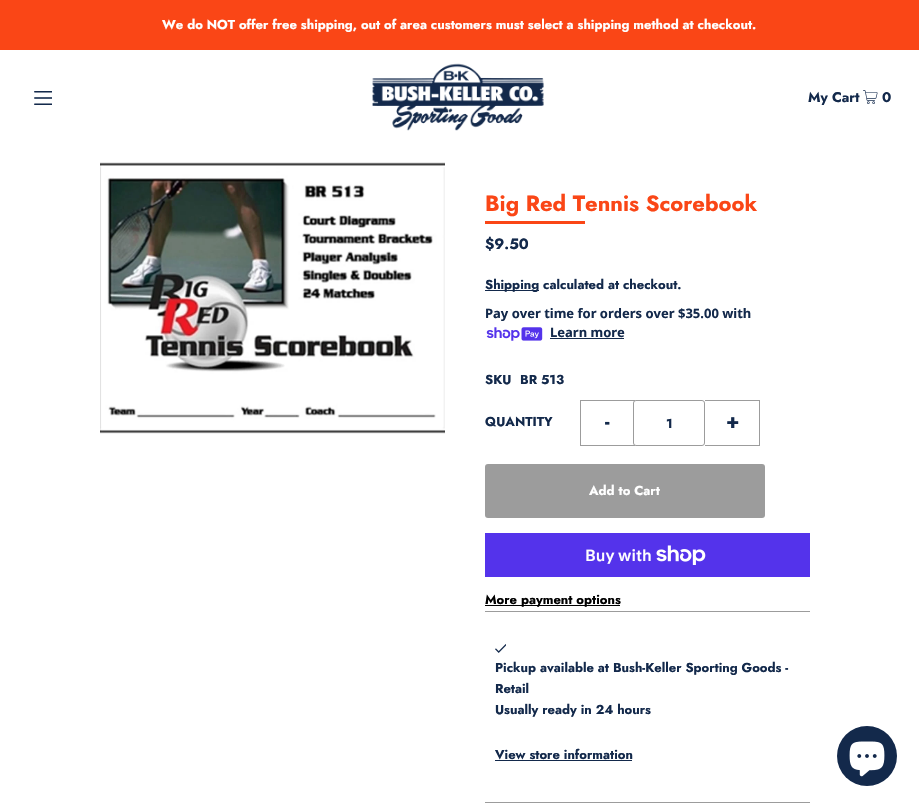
#include "include/core/SkBlurTypes.h"
#include "include/core/SkCanvas.h"
#include "include/core/SkData.h"
#include "include/core/SkFont.h"
#include "include/core/SkFontMgr.h"
#include "include/core/SkImage.h"
#include "include/core/SkMaskFilter.h"
#include "include/core/SkPaint.h"
#include "include/core/SkPathBuilder.h"
#include "include/core/SkTextBlob.h"
#include "include/effects/SkDashPathEffect.h"
#include "include/effects/SkGradientShader.h"
#include "include/utils/SkParsePath.h"

extern sk_sp<SkFontMgr> fontMgr;

static SkFont font(const char* family, int weight, float size, bool italic = false) {
    SkFontStyle style(weight, SkFontStyle::kNormal_Width,
        italic ? SkFontStyle::kItalic_Slant : SkFontStyle::kUpright_Slant);
    SkFont result(fontMgr->matchFamilyStyle(family, style), size);
    result.setSubpixel(true);
    return result;
}

static void drawLabel(SkCanvas* canvas, const char* s, float x, float y, const SkFont& font, SkColor color) {
    SkPaint ink(SkColor4f::FromColor(color));
    ink.setAntiAlias(true);
    canvas->drawString(s, x, y, font, ink);
}

static void fillRect(SkCanvas* canvas, float x, float y, float w, float h, SkColor color) {
    SkPaint ink(SkColor4f::FromColor(color));
    ink.setAntiAlias(true);
    canvas->drawRect(SkRect::MakeXYWH(x, y, w, h), ink);
}

static void fillRRect(SkCanvas* canvas, float x, float y, float w, float h, float radius, SkColor color) {
    SkPaint ink(SkColor4f::FromColor(color));
    ink.setAntiAlias(true);
    canvas->drawRoundRect(SkRect::MakeXYWH(x, y, w, h), radius, radius, ink);
}

static void drawPhoto(SkCanvas* canvas, const char* path, float x, float y, float w, float h) {
    auto image = SkImages::DeferredFromEncodedData(SkData::MakeFromFileName(path));
    canvas->drawImageRect(image, SkRect::MakeXYWH(x, y, w, h), SkSamplingOptions());
}

void draw(SkCanvas* canvas) {
    SkPaint paint;
    paint.setAntiAlias(true);
    canvas->clear(0xFFFFFFFF);
    fillRect(canvas, 0, 0, 919, 50, 0xFFFA4616);
    SkFont font1 = font("Jost", 700, 13);
    drawLabel(canvas, "We do NOT offer free shipping, out of area customers must select a shipping method at checkout.", 162, 29, font1, 0xFFFFFFFF);
    drawPhoto(canvas, "assets/img1.png", 34, 91, 18, 14);
    drawPhoto(canvas, "assets/img2.png", 372, 63, 172, 68);
    SkFont font2 = font("Jost", 700, 14);
    drawLabel(canvas, "My Cart", 808, 102, font2, 0xFF13294B);
    drawPhoto(canvas, "assets/img3.png", 863, 90, 15, 14);
    drawLabel(canvas, "0", 882, 102, font2, 0xFF13294B);
    drawPhoto(canvas, "assets/img4.png", 100, 162, 345, 272);
    SkFont font3 = font("Jost", 700, 22);
    drawLabel(canvas, "Big Red Tennis Scorebook", 485, 211, font3, 0xFFFA4616);
    fillRect(canvas, 485, 221, 100, 3, 0xFFFA4616);
    SkFont font4 = font("Jost", 700, 15);
    drawLabel(canvas, "$9.50", 485, 249, font4, 0xFF13294B);
    fillRect(canvas, 485, 290, 54, 1, 0xFF13294B);
    drawLabel(canvas, "Shipping calculated at checkout.", 485, 289, font1, 0xFF13294B);
    SkFont font5 = font("Noto Sans", 700, 13);
    drawLabel(canvas, "Pay over time for orders over $35.00 with", 485, 318, font5, 0xFF13294B);
    drawPhoto(canvas, "assets/img5.png", 486, 327, 57, 14);
    drawLabel(canvas, "Learn more", 550, 337, font5, 0xFF13294B);
    fillRect(canvas, 550, 338, 74, 1, 0xFF13294B);
    fillRect(canvas, 485, 611, 325, 1, 0xFF9C9C9C);
    drawLabel(canvas, "SKU", 485, 384, font1, 0xFF13294B);
    drawLabel(canvas, "BR 513", 520, 384, font1, 0xFF13294B);
    drawLabel(canvas, "QUANTITY", 485, 426, font1, 0xFF13294B);
    fillRect(canvas, 580, 400, 55, 1, 0xFF9C9C9C);
    fillRect(canvas, 580, 445, 55, 1, 0xFF9C9C9C);
    fillRect(canvas, 580, 400, 1, 46, 0xFF9C9C9C);
    SkFont font6 = font("Jost", 700, 20);
    drawLabel(canvas, "-", 605, 428, font6, 0xFF13294B);
    paint.setStroke(true);
    paint.setStrokeWidth(1);
    paint.setColor(0xFF9C9C9C);
    canvas->drawRoundRect(SkRect::MakeXYWH(633.5f, 400.5f, 71, 45), 2.5f, 2.5f, paint);
    drawLabel(canvas, "1", 666, 428, font1, 0xFF13294B);
    fillRect(canvas, 705, 400, 55, 1, 0xFF9C9C9C);
    fillRect(canvas, 759, 400, 1, 46, 0xFF9C9C9C);
    fillRect(canvas, 705, 445, 55, 1, 0xFF9C9C9C);
    drawLabel(canvas, "+", 726, 428, font6, 0xFF13294B);
    fillRRect(canvas, 485, 464, 280, 54, 3, 0xFF9C9C9C);
    drawLabel(canvas, "Add to Cart", 589, 495, font1, 0xFFFFFFFF);
    fillRect(canvas, 485, 533, 325, 44, 0xFF5433EB);
    SkFont font7 = font("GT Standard", 600, 16);
    drawLabel(canvas, "Buy with", 585, 561, font7, 0xFFFFFFFF);
    drawPhoto(canvas, "assets/img6.png", 656, 545, 50, 20);
    fillRect(canvas, 485, 605, 135, 1, 0xFF000000);
    drawLabel(canvas, "More payment options", 485, 604, font1, 0xFF000000);
    fillRect(canvas, 485, 802, 325, 1, 0xFF9C9C9C);
    drawPhoto(canvas, "assets/img7.png", 495, 644, 11, 9);
    drawLabel(canvas, "Pickup available at Bush-Keller Sporting Goods -", 495, 672, font1, 0xFF13294B);
    drawLabel(canvas, "Retail", 495, 693, font1, 0xFF13294B);
    drawLabel(canvas, "Usually ready in 24 hours", 495, 714, font1, 0xFF13294B);
    drawLabel(canvas, "View store information", 495, 759, font1, 0xFF13294B);
    fillRect(canvas, 495, 760, 137, 1, 0xFF13294B);
    paint.setStroke(false);
    paint.setColor(0xFF13294B);
    canvas->drawCircle(867, 756, 30, paint);
    drawPhoto(canvas, "assets/img8.png", 849, 741, 36, 36);
}
